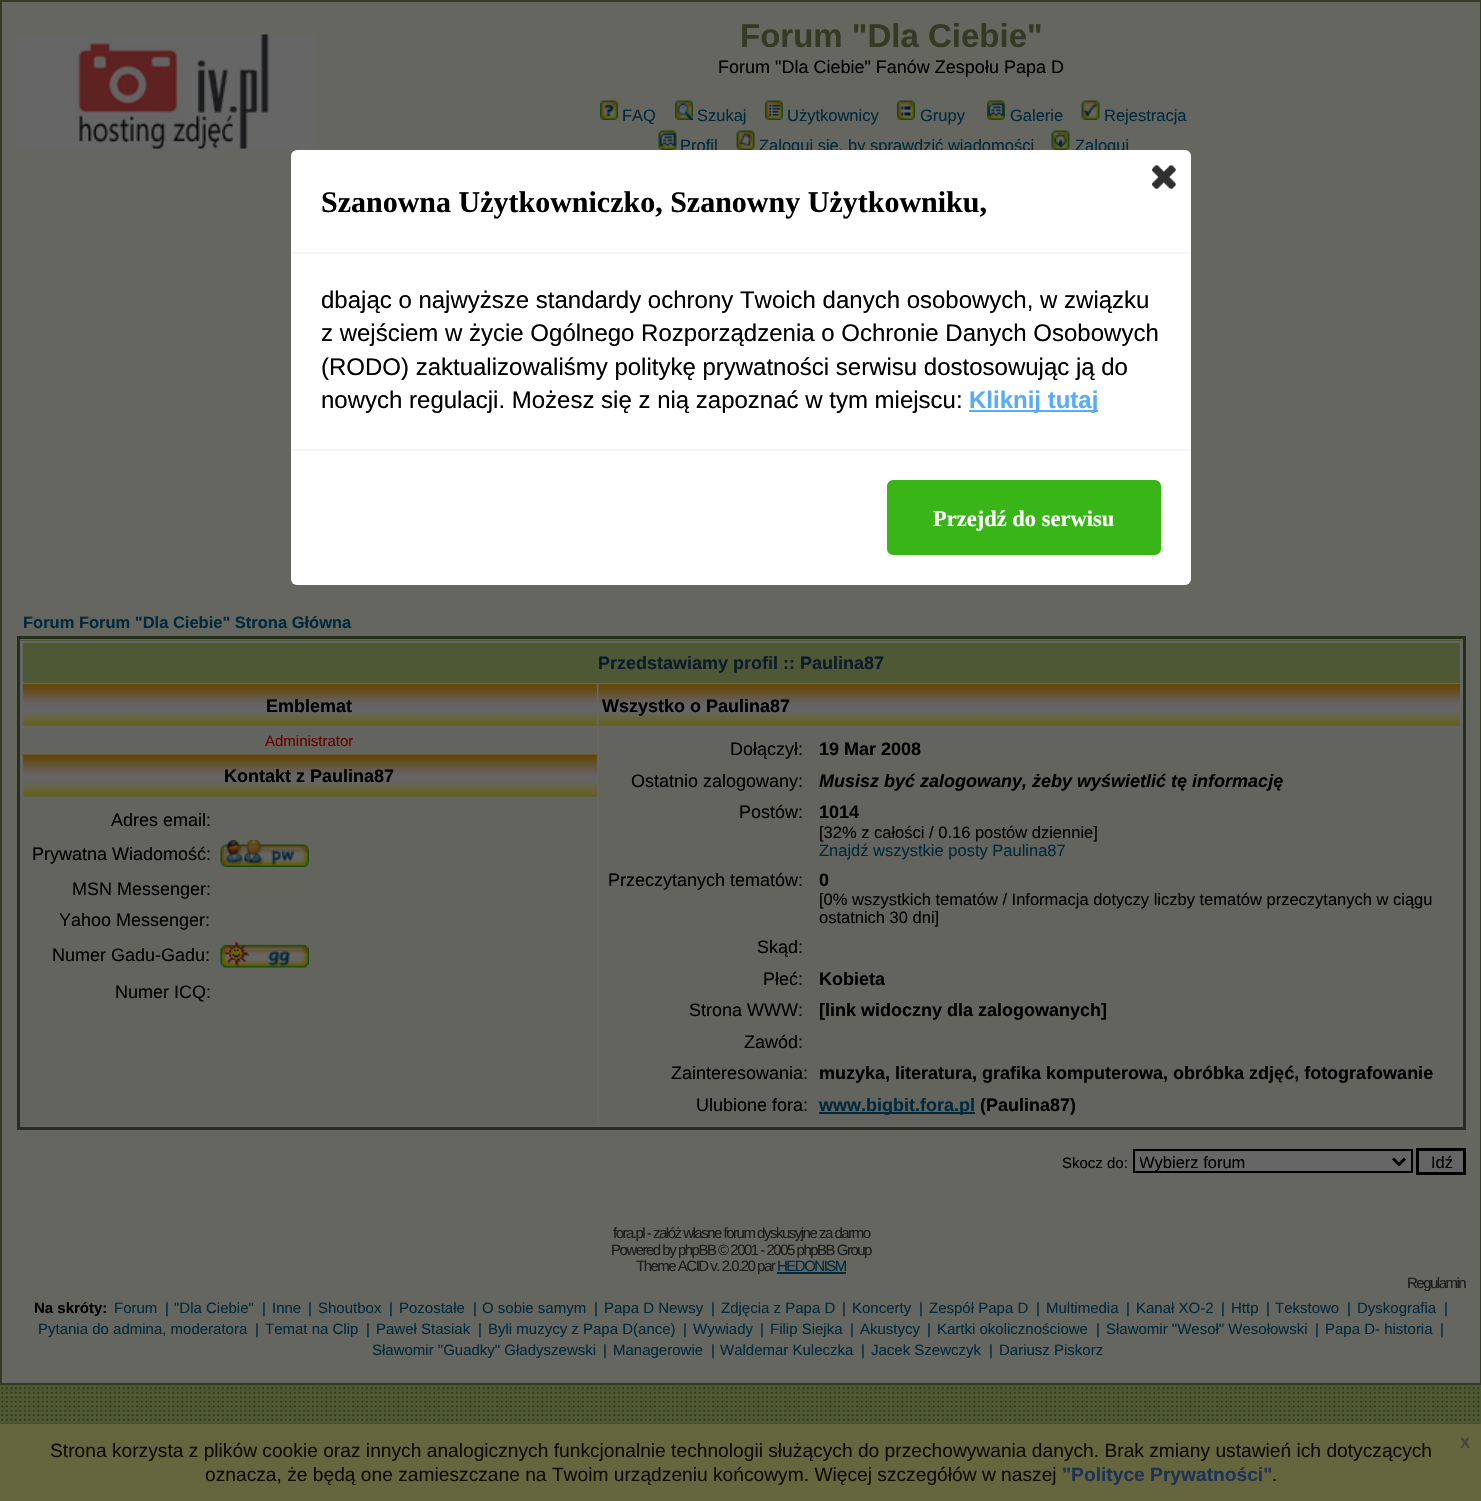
#include "include/core/SkBlurTypes.h"
#include "include/core/SkCanvas.h"
#include "include/core/SkData.h"
#include "include/core/SkFont.h"
#include "include/core/SkFontMgr.h"
#include "include/core/SkImage.h"
#include "include/core/SkMaskFilter.h"
#include "include/core/SkPaint.h"
#include "include/core/SkPathBuilder.h"
#include "include/core/SkTextBlob.h"
#include "include/effects/SkDashPathEffect.h"
#include "include/effects/SkGradientShader.h"
#include "include/utils/SkParsePath.h"

extern sk_sp<SkFontMgr> fontMgr;

static SkFont font(const char* family, int weight, float size, bool italic = false) {
    SkFontStyle style(weight, SkFontStyle::kNormal_Width,
        italic ? SkFontStyle::kItalic_Slant : SkFontStyle::kUpright_Slant);
    SkFont result(fontMgr->matchFamilyStyle(family, style), size);
    result.setSubpixel(true);
    return result;
}

static void drawLabel(SkCanvas* canvas, const char* s, float x, float y, const SkFont& font, SkColor color) {
    SkPaint ink(SkColor4f::FromColor(color));
    ink.setAntiAlias(true);
    canvas->drawString(s, x, y, font, ink);
}

static void drawTracked(SkCanvas* canvas, const char* s, float x, float y, const SkFont& font, const SkPaint& ink, float letter, float word) {
    std::vector<SkGlyphID> glyphs(font.countText(s, strlen(s), SkTextEncoding::kUTF8));
    std::vector<float> xs(glyphs.size());
    font.textToGlyphs(s, strlen(s), SkTextEncoding::kUTF8, glyphs);
    font.getXPos(glyphs, xs, x);
    float extra = 0;
    for (size_t i = 0; i < glyphs.size(); i++) {
        xs[i] += extra;
        extra += letter + word * (glyphs[i] == font.unicharToGlyph(' '));
    }
    canvas->drawTextBlob(SkTextBlob::MakeFromPosHGlyphs(glyphs, xs, y, font), 0, 0, ink);
}

static void fillRect(SkCanvas* canvas, float x, float y, float w, float h, SkColor color) {
    SkPaint ink(SkColor4f::FromColor(color));
    ink.setAntiAlias(true);
    canvas->drawRect(SkRect::MakeXYWH(x, y, w, h), ink);
}

static void fillRRect(SkCanvas* canvas, float x, float y, float w, float h, float radius, SkColor color) {
    SkPaint ink(SkColor4f::FromColor(color));
    ink.setAntiAlias(true);
    canvas->drawRoundRect(SkRect::MakeXYWH(x, y, w, h), radius, radius, ink);
}

static void drawPhoto(SkCanvas* canvas, const char* path, float x, float y, float w, float h) {
    auto image = SkImages::DeferredFromEncodedData(SkData::MakeFromFileName(path));
    canvas->drawImageRect(image, SkRect::MakeXYWH(x, y, w, h), SkSamplingOptions());
}

static SkPath parsePath(const char* data, bool evenOdd = false) {
    SkPath result = *SkParsePath::FromSVGString(data);
    if (evenOdd) result.setFillType(SkPathFillType::kEvenOdd);
    return result;
}

void draw(SkCanvas* canvas) {
    SkPaint paint;
    paint.setAntiAlias(true);
    canvas->clear(0xFF4F5835);
    drawPhoto(canvas, "assets/img1.png", 1, 1387, 1479, 37);
    paint.setColor(0xFF65665F);
    canvas->drawRect(SkRect::MakeXYWH(1, 1, 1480, 1383), paint);
    paint.setStroke(true);
    paint.setStrokeWidth(2);
    paint.setColor(0xFF343A24);
    canvas->drawRect(SkRect::MakeXYWH(1, 1, 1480, 1383), paint);
    drawPhoto(canvas, "assets/img2.png", 16, 34, 301, 115);
    SkFont font1 = font("Liberation Sans", 700, 33);
    drawLabel(canvas, "Forum \"Dla Ciebie\"", 740, 47, font1, 0xFF343A24);
    SkFont font2 = font("Liberation Sans", 400, 18);
    drawLabel(canvas, "Forum \"Dla Ciebie\" Fanów Zespołu Papa D", 718, 73, font2, 0xFF000000);
    drawPhoto(canvas, "assets/img3.png", 600, 100, 18, 20);
    SkFont font3 = font("Liberation Sans", 400, 16.5f);
    drawLabel(canvas, "FAQ", 622, 121, font3, 0xFF00293D);
    drawPhoto(canvas, "assets/img4.png", 675, 100, 18, 20);
    drawLabel(canvas, "Szukaj", 697, 121, font3, 0xFF00293D);
    drawPhoto(canvas, "assets/img5.png", 765, 100, 18, 20);
    drawLabel(canvas, "Użytkownicy", 787, 121, font3, 0xFF00293D);
    drawPhoto(canvas, "assets/img6.png", 897, 100, 18, 20);
    drawLabel(canvas, "Grupy", 920, 121, font3, 0xFF00293D);
    drawPhoto(canvas, "assets/img7.png", 987, 100, 18, 20);
    drawLabel(canvas, "Galerie", 1010, 121, font3, 0xFF00293D);
    drawPhoto(canvas, "assets/img8.png", 1081, 100, 19, 20);
    drawLabel(canvas, "Rejestracja", 1104, 121, font3, 0xFF00293D);
    drawPhoto(canvas, "assets/img9.png", 658, 130, 19, 20);
    drawLabel(canvas, "Profil", 680, 151, font3, 0xFF00293D);
    drawPhoto(canvas, "assets/img10.png", 736, 130, 19, 20);
    drawLabel(canvas, "Zaloguj się, by sprawdzić wiadomości", 759, 151, font3, 0xFF00293D);
    drawPhoto(canvas, "assets/img11.png", 1051, 130, 19, 20);
    drawLabel(canvas, "Zaloguj", 1075, 151, font3, 0xFF00293D);
    SkFont font4 = font("Liberation Sans", 700, 16.5f);
    drawLabel(canvas, "Forum Forum \"Dla Ciebie\" Strona Główna", 23, 628, font4, 0xFF00293D);
    paint.setStroke(false);
    paint.setColor(0xFF666666);
    canvas->drawRect(SkRect::MakeXYWH(18.5f, 637.5f, 1446, 491), paint);
    paint.setStroke(true);
    paint.setStrokeWidth(3);
    paint.setColor(0xFF262E1C);
    canvas->drawRect(SkRect::MakeXYWH(18.5f, 637.5f, 1446, 491), paint);
    fillRect(canvas, 21, 640, 1440, 43, 0xFF4F5835);
    fillRect(canvas, 21, 641, 1440, 2, 0xFF666666);
    fillRect(canvas, 1460, 641, 1, 42, 0xFF666666);
    fillRect(canvas, 21, 641, 2, 42, 0xFF666666);
    SkFont font5 = font("Liberation Sans", 700, 18);
    drawLabel(canvas, "Przedstawiamy profil :: Paulina87", 598, 669, font5, 0xFF0B1B2D);
    drawPhoto(canvas, "assets/img12.png", 23, 684, 574, 42);
    drawLabel(canvas, "Emblemat", 266, 712, font5, 0xFF000000);
    drawPhoto(canvas, "assets/img13.png", 598, 684, 862, 42);
    drawLabel(canvas, "Wszystko o Paulina87", 602, 712, font5, 0xFF000000);
    fillRect(canvas, 21, 728, 576, 25, 0xFF63645D);
    SkFont font6 = font("Liberation Sans", 400, 15);
    drawLabel(canvas, "Administrator", 265, 746, font6, 0xFF660000);
    fillRect(canvas, 599, 728, 862, 397, 0xFF63645D);
    drawLabel(canvas, "Dołączył:", 730, 755, font2, 0xFF000000);
    drawLabel(canvas, "19 Mar 2008", 819, 755, font5, 0xFF000000);
    drawLabel(canvas, "Ostatnio zalogowany:", 631, 787, font2, 0xFF000000);
    SkFont font7 = font("Liberation Sans", 700, 18, true);
    drawLabel(canvas, "Musisz być zalogowany, żeby wyświetlić tę informację", 819, 787, font7, 0xFF000000);
    drawLabel(canvas, "Postów:", 739, 818, font2, 0xFF000000);
    drawLabel(canvas, "1014", 819, 818, font5, 0xFF000000);
    drawLabel(canvas, "[32% z całości / 0.16 postów dziennie]", 819, 838, font3, 0xFF000000);
    drawLabel(canvas, "Znajdź wszystkie posty Paulina87", 819, 856, font3, 0xFF00293D);
    drawLabel(canvas, "Przeczytanych tematów:", 608, 886, font2, 0xFF000000);
    drawLabel(canvas, "0", 819, 886, font5, 0xFF000000);
    drawLabel(canvas, "[0% wszystkich tematów / Informacja dotyczy liczby tematów przeczytanych w ciągu", 819, 905, font3, 0xFF000000);
    drawLabel(canvas, "ostatnich 30 dni]", 819, 923, font3, 0xFF000000);
    drawLabel(canvas, "Skąd:", 757, 953, font2, 0xFF000000);
    drawLabel(canvas, "Płeć:", 763, 985, font2, 0xFF000000);
    drawLabel(canvas, "Kobieta", 819, 985, font5, 0xFF000000);
    drawLabel(canvas, "Strona WWW:", 689, 1016, font2, 0xFF000000);
    drawLabel(canvas, "[link widoczny dla zalogowanych]", 819, 1016, font5, 0xFF000000);
    drawLabel(canvas, "Zawód:", 744, 1048, font2, 0xFF000000);
    drawLabel(canvas, "Zainteresowania:", 671, 1079, font2, 0xFF000000);
    drawLabel(canvas, "muzyka, literatura, grafika komputerowa, obróbka zdjęć, fotografowanie", 819, 1079, font5, 0xFF000000);
    drawLabel(canvas, "Ulubione fora:", 696, 1111, font2, 0xFF000000);
    fillRect(canvas, 819, 1112, 156, 2, 0xFF00293D);
    drawLabel(canvas, "www.bigbit.fora.pl", 819, 1111, font5, 0xFF00293D);
    drawLabel(canvas, "(Paulina87)", 980, 1111, font5, 0xFF000000);
    fillRect(canvas, 23, 796, 574, 1, 0xFF595B52);
    drawPhoto(canvas, "assets/img14.png", 21, 754, 576, 43);
    fillRect(canvas, 21, 755, 2, 42, 0xFF666666);
    drawLabel(canvas, "Kontakt z Paulina87", 224, 782, font5, 0xFF000000);
    fillRect(canvas, 21, 798, 576, 327, 0xFF63645D);
    drawLabel(canvas, "Adres email:", 111, 826, font2, 0xFF000000);
    drawLabel(canvas, "Prywatna Wiadomość:", 32, 860, font2, 0xFF000000);
    drawPhoto(canvas, "assets/img15.png", 220, 840, 89, 27);
    drawLabel(canvas, "MSN Messenger:", 72, 895, font2, 0xFF000000);
    drawLabel(canvas, "Yahoo Messenger:", 59, 926, font2, 0xFF000000);
    drawLabel(canvas, "Numer Gadu-Gadu:", 52, 961, font2, 0xFF000000);
    drawPhoto(canvas, "assets/img16.png", 220, 941, 89, 27);
    drawLabel(canvas, "Numer ICQ:", 115, 998, font2, 0xFF000000);
    drawLabel(canvas, "Skocz do:", 1062, 1168, font6, 0xFF000000);
    paint.setStroke(false);
    paint.setColor(0xFF666666);
    canvas->drawRect(SkRect::MakeXYWH(1134, 1150, 278, 22), paint);
    paint.setStroke(true);
    paint.setStrokeWidth(2);
    paint.setColor(0xFF000000);
    canvas->drawRect(SkRect::MakeXYWH(1134, 1150, 278, 22), paint);
    paint.setStrokeWidth(3);
    canvas->drawPath(parsePath("M1393 1158.5L1399 1164.5L1405 1158.5"), paint);
    canvas->save();
    canvas->clipRect(SkRect::MakeXYWH(1140, 1151, 248, 21));
    drawLabel(canvas, "Wybierz forum", 1139, 1168, font3, 0xFF000000);
    canvas->restore();
    paint.setStroke(false);
    paint.setColor(0xFF646464);
    canvas->drawRect(SkRect::MakeXYWH(1417.5f, 1149.5f, 47, 24), paint);
    paint.setStroke(true);
    paint.setColor(0xFF000000);
    canvas->drawRect(SkRect::MakeXYWH(1417.5f, 1149.5f, 47, 24), paint);
    drawLabel(canvas, "Idź", 1431, 1168, font3, 0xFF000000);
    paint.setStroke(false);
    paint.setColor(0xFF1B1B1B);
    drawTracked(canvas, "fora.pl - załóż własne forum dyskusyjne za darmo", 613, 1238, font6, paint, -1.5f, 0);
    drawTracked(canvas, "Powered by phpBB © 2001 - 2005 phpBB Group", 611, 1255, font6, paint, -1.5f, 0);
    drawTracked(canvas, "Theme ACID v. 2.0.20 par", 636, 1271, font6, paint, -1.5f, 0);
    fillRect(canvas, 777, 1272, 69, 2, 0xFF00293D);
    paint.setColor(0xFF00293D);
    drawTracked(canvas, "HEDONISM", 777, 1271, font6, paint, -1.5f, 0);
    paint.setColor(0xFF1B1B1B);
    drawTracked(canvas, "Regulamin", 1407, 1288, font6, paint, -1.5f, 0);
    SkFont font8 = font("Liberation Sans", 700, 15);
    drawLabel(canvas, "Na skróty:", 34, 1313, font8, 0xFF000000);
    drawLabel(canvas, "Forum", 114, 1313, font6, 0xFF00293D);
    drawLabel(canvas, "|", 165, 1313, font6, 0xFF00293D);
    drawLabel(canvas, "\"Dla Ciebie\"", 174, 1313, font6, 0xFF00293D);
    drawLabel(canvas, "|", 262, 1313, font6, 0xFF00293D);
    drawLabel(canvas, "Inne", 272, 1313, font6, 0xFF00293D);
    drawLabel(canvas, "|", 308, 1313, font6, 0xFF00293D);
    drawLabel(canvas, "Shoutbox", 318, 1313, font6, 0xFF00293D);
    drawLabel(canvas, "|", 389, 1313, font6, 0xFF00293D);
    drawLabel(canvas, "Pozostałe", 399, 1313, font6, 0xFF00293D);
    drawLabel(canvas, "|", 473, 1313, font6, 0xFF00293D);
    drawLabel(canvas, "O sobie samym", 482, 1313, font6, 0xFF00293D);
    drawLabel(canvas, "|", 594, 1313, font6, 0xFF00293D);
    drawLabel(canvas, "Papa D Newsy", 604, 1313, font6, 0xFF00293D);
    drawLabel(canvas, "|", 711, 1313, font6, 0xFF00293D);
    drawLabel(canvas, "Zdjęcia z Papa D", 721, 1313, font6, 0xFF00293D);
    drawLabel(canvas, "|", 842, 1313, font6, 0xFF00293D);
    drawLabel(canvas, "Koncerty", 852, 1313, font6, 0xFF00293D);
    drawLabel(canvas, "|", 919, 1313, font6, 0xFF00293D);
    drawLabel(canvas, "Zespół Papa D", 929, 1313, font6, 0xFF00293D);
    drawLabel(canvas, "|", 1036, 1313, font6, 0xFF00293D);
    drawLabel(canvas, "Multimedia", 1046, 1313, font6, 0xFF00293D);
    drawLabel(canvas, "|", 1126, 1313, font6, 0xFF00293D);
    drawLabel(canvas, "Kanał XO-2", 1136, 1313, font6, 0xFF00293D);
    drawLabel(canvas, "|", 1221, 1313, font6, 0xFF00293D);
    drawLabel(canvas, "Http", 1231, 1313, font6, 0xFF00293D);
    drawLabel(canvas, "|", 1266, 1313, font6, 0xFF00293D);
    drawLabel(canvas, "Tekstowo", 1275, 1313, font6, 0xFF00293D);
    drawLabel(canvas, "|", 1347, 1313, font6, 0xFF00293D);
    drawLabel(canvas, "Dyskografia", 1357, 1313, font6, 0xFF00293D);
    drawLabel(canvas, "|", 1444, 1313, font6, 0xFF00293D);
    drawLabel(canvas, "Pytania do admina, moderatora", 38, 1334, font6, 0xFF00293D);
    drawLabel(canvas, "|", 255, 1334, font6, 0xFF00293D);
    drawLabel(canvas, "Temat na Clip", 265, 1334, font6, 0xFF00293D);
    drawLabel(canvas, "|", 366, 1334, font6, 0xFF00293D);
    drawLabel(canvas, "Paweł Stasiak", 376, 1334, font6, 0xFF00293D);
    drawLabel(canvas, "|", 478, 1334, font6, 0xFF00293D);
    drawLabel(canvas, "Byli muzycy z Papa D(ance)", 488, 1334, font6, 0xFF00293D);
    drawLabel(canvas, "|", 683, 1334, font6, 0xFF00293D);
    drawLabel(canvas, "Wywiady", 693, 1334, font6, 0xFF00293D);
    drawLabel(canvas, "|", 760, 1334, font6, 0xFF00293D);
    drawLabel(canvas, "Filip Siejka", 770, 1334, font6, 0xFF00293D);
    drawLabel(canvas, "|", 850, 1334, font6, 0xFF00293D);
    drawLabel(canvas, "Akustycy", 860, 1334, font6, 0xFF00293D);
    drawLabel(canvas, "|", 927, 1334, font6, 0xFF00293D);
    drawLabel(canvas, "Kartki okolicznościowe", 937, 1334, font6, 0xFF00293D);
    drawLabel(canvas, "|", 1096, 1334, font6, 0xFF00293D);
    drawLabel(canvas, "Sławomir \"Wesoł\" Wesołowski", 1106, 1334, font6, 0xFF00293D);
    drawLabel(canvas, "|", 1315, 1334, font6, 0xFF00293D);
    drawLabel(canvas, "Papa D- historia", 1325, 1334, font6, 0xFF00293D);
    drawLabel(canvas, "|", 1440, 1334, font6, 0xFF00293D);
    drawLabel(canvas, "Sławomir \"Guadky\" Gładyszewski", 372, 1355, font6, 0xFF00293D);
    drawLabel(canvas, "|", 603, 1355, font6, 0xFF00293D);
    drawLabel(canvas, "Managerowie", 613, 1355, font6, 0xFF00293D);
    drawLabel(canvas, "|", 711, 1355, font6, 0xFF00293D);
    drawLabel(canvas, "Waldemar Kuleczka", 720, 1355, font6, 0xFF00293D);
    drawLabel(canvas, "|", 861, 1355, font6, 0xFF00293D);
    drawLabel(canvas, "Jacek Szewczyk", 871, 1355, font6, 0xFF00293D);
    drawLabel(canvas, "|", 989, 1355, font6, 0xFF00293D);
    drawLabel(canvas, "Dariusz Piskorz", 999, 1355, font6, 0xFF00293D);
    fillRRect(canvas, 291, 150, 900, 435, 6, 0xFFFFFFFF);
    fillRect(canvas, 291, 252, 900, 2, 0xFFF5F5F5);
    drawPhoto(canvas, "assets/img17.png", 1152, 165, 24, 24);
    SkFont font9 = font("Liberation Serif", 700, 30);
    drawLabel(canvas, "Szanowna Użytkowniczko, Szanowny Użytkowniku,", 321, 212, font9, 0xFF000000);
    SkFont font10 = font("Liberation Sans", 400, 24);
    drawLabel(canvas, "dbając o najwyższe standardy ochrony Twoich danych osobowych, w związku", 321, 308, font10, 0xFF000000);
    drawLabel(canvas, "z wejściem w życie Ogólnego Rozporządzenia o Ochronie Danych Osobowych", 321, 341, font10, 0xFF000000);
    drawLabel(canvas, "(RODO) zaktualizowaliśmy politykę prywatności serwisu dostosowując ją do", 321, 375, font10, 0xFF000000);
    drawLabel(canvas, "nowych regulacji. Możesz się z nią zapoznać w tym miejscu:", 321, 408, font10, 0xFF000000);
    fillRect(canvas, 969, 410, 129, 2, 0xFF58ABF9);
    SkFont font11 = font("Liberation Sans", 700, 24);
    drawLabel(canvas, "Kliknij tutaj", 969, 408, font11, 0xFF58ABF9);
    fillRect(canvas, 291, 449, 900, 2, 0xFFF5F5F5);
    paint.setColor(0xFF39B518);
    canvas->drawRoundRect(SkRect::MakeXYWH(888, 481, 272, 73), 5, 5, paint);
    paint.setStroke(true);
    paint.setStrokeWidth(2);
    canvas->drawRoundRect(SkRect::MakeXYWH(888, 481, 272, 73), 5, 5, paint);
    SkFont font12 = font("Liberation Serif", 700, 22.5f);
    drawLabel(canvas, "Przejdź do serwisu", 933, 526, font12, 0xFFFFFFFF);
    paint.setStroke(false);
    paint.setColor(0xFF4B4B4B);
    paint.setMaskFilter(SkMaskFilter::MakeBlur(kNormal_SkBlurStyle, 3));
    canvas->drawRect(SkRect::MakeXYWH(0, 1427, 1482, 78), paint);
    paint.setMaskFilter(nullptr);
    fillRect(canvas, 0, 1424, 1481, 77, 0xFF65653E);
    SkFont font13 = font("Liberation Sans", 400, 19.2f);
    drawLabel(canvas, "Strona korzysta z plików cookie oraz innych analogicznych funkcjonalnie technologii służących do przechowywania danych. Brak zmiany ustawień ich dotyczących", 50, 1457, font13, 0xFF0E0D00);
    drawLabel(canvas, "oznacza, że będą one zamieszczane na Twoim urządzeniu końcowym. Więcej szczegółów w naszej", 205, 1481, font13, 0xFF0E0D00);
    SkFont font14 = font("Liberation Sans", 700, 19.2f);
    drawLabel(canvas, "\"Polityce Prywatności\"", 1062, 1481, font14, 0xFF1E3258);
    drawLabel(canvas, ".", 1272, 1481, font13, 0xFF0E0D00);
    drawLabel(canvas, "X", 1460, 1448, font8, 0xFF444444);
}
